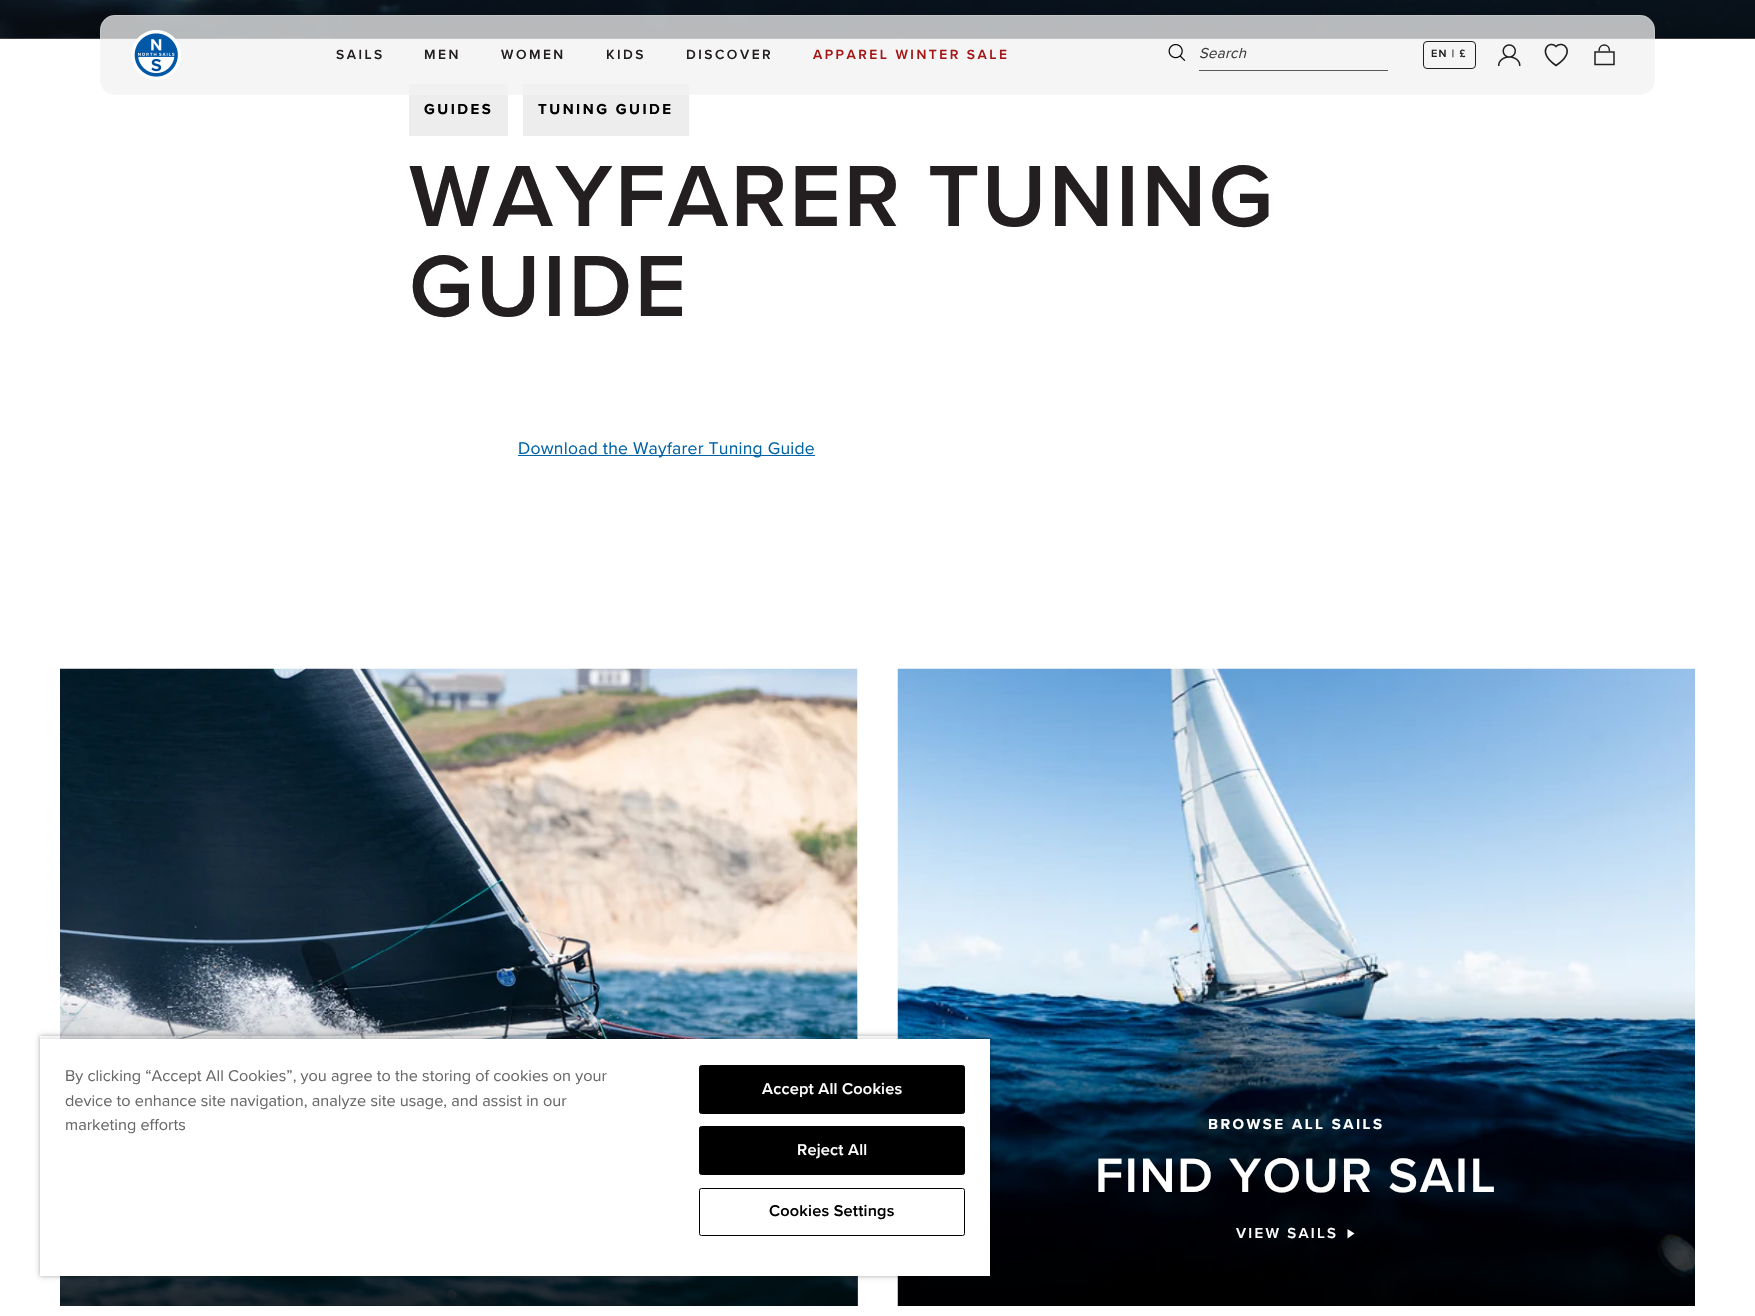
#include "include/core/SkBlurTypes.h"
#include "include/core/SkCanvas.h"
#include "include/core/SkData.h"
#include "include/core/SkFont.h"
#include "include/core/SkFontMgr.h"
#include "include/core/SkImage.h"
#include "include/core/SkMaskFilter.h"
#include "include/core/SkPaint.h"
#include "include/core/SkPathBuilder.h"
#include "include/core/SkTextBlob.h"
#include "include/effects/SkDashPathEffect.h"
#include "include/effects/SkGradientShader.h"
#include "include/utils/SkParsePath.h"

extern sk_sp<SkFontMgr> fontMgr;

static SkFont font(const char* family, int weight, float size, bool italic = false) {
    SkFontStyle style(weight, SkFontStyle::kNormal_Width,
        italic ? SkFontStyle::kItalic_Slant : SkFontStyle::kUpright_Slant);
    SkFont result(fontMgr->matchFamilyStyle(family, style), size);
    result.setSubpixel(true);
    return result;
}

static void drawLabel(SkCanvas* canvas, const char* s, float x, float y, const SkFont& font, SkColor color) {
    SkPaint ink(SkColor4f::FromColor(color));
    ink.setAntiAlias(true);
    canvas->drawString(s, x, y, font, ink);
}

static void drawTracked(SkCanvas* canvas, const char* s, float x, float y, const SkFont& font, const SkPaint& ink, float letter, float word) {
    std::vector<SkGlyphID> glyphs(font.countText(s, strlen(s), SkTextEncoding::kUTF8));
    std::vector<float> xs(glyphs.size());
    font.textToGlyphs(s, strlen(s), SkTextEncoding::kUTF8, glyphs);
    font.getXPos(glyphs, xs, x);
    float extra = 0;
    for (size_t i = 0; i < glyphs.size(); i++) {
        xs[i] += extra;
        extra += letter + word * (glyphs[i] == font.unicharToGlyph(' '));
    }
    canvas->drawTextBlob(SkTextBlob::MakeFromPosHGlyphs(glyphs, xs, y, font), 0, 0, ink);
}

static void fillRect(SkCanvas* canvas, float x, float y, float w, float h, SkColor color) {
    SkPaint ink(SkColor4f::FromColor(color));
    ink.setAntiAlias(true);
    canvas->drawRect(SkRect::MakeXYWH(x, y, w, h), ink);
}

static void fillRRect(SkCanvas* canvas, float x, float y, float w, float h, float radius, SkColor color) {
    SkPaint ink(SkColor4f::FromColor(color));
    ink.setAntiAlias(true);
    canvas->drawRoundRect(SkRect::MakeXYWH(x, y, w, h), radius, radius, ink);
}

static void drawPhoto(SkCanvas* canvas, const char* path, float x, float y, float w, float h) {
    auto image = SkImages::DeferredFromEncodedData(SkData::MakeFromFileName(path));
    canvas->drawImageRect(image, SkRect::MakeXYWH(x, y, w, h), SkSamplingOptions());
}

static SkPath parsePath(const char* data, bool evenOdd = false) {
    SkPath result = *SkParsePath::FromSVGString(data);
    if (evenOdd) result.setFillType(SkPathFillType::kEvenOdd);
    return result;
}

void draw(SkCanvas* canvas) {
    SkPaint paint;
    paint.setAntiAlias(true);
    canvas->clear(0xFFFFFFFF);
    drawPhoto(canvas, "assets/img4.png", 0, 0, 1755, 39);
    {
        const SkColor colors[] = {0xB3000000, 0x00000000};
        const float stops[] = {0, 1};
        const SkPoint ends[] = {{878, 39}, {878, -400}};
        paint.setShader(SkGradientShader::MakeLinear(ends, colors, stops, 2, SkTileMode::kClamp));
        paint.setAlpha(255);
    }
    canvas->drawRect(SkRect::MakeXYWH(0, 0, 1755, 39), paint);
    fillRect(canvas, 409, 84, 99, 52, 0xFFEDEDED);
    fillRect(canvas, 523, 84, 166, 52, 0xFFEDEDED);
    fillRRect(canvas, 100, 15, 1555, 80, 15, 0xBFF2F2F2);
    paint.setStroke(true);
    paint.setStrokeWidth(1);
    paint.setShader(nullptr);
    paint.setColor(0x2EFFFFFF);
    canvas->drawRoundRect(SkRect::MakeXYWH(100.5f, 15.5f, 1554, 79), 14.5f, 14.5f, paint);
    drawPhoto(canvas, "assets/img1.png", 131, 30, 50, 50);
    SkFont font1 = font("Proxima Nova", 600, 13.75f);
    paint.setStroke(false);
    paint.setColor(0xFF231F20);
    drawTracked(canvas, "SAILS", 336, 59, font1, paint, 2.5f, 0);
    drawTracked(canvas, "MEN", 424, 59, font1, paint, 2.5f, 0);
    drawTracked(canvas, "WOMEN", 501, 59, font1, paint, 2.5f, 0);
    drawTracked(canvas, "KIDS", 606, 59, font1, paint, 2.5f, 0);
    drawTracked(canvas, "DISCOVER", 686, 59, font1, paint, 2.5f, 0);
    paint.setColor(0xFFA41616);
    drawTracked(canvas, "APPAREL WINTER SALE", 813, 59, font1, paint, 2.5f, 0);
    drawPhoto(canvas, "assets/img2.png", 1168, 44, 18, 17);
    fillRect(canvas, 1199, 70, 189, 1, 0xFF585555);
    SkFont font2 = font("Proxima Nova", 400, 15, true);
    paint.setColor(0xFF3D3D3D);
    drawTracked(canvas, "Search", 1199, 58, font2, paint, 0.25f, 0);
    paint.setStroke(true);
    paint.setColor(0xFF231F20);
    canvas->drawRoundRect(SkRect::MakeXYWH(1423.5f, 41.5f, 52, 27), 3.5f, 3.5f, paint);
    SkFont font3 = font("Proxima Nova", 600, 11);
    paint.setStroke(false);
    drawTracked(canvas, "EN | £", 1431, 57, font3, paint, 1.25f, 0);
    drawPhoto(canvas, "assets/img3.png", 1498, 44, 23, 22);
    paint.setStroke(true);
    paint.setStrokeWidth(1.6f);
    canvas->drawPath(parsePath("M1556 65.5C1535.5 51.5 1550 39.5 1556 46.5C1562.5 39.5 1577.5 51.5 1556 65.5Z"), paint);
    paint.setStrokeWidth(1.5f);
    canvas->drawPath(parsePath("M1599 51C1599 43 1609.5 43 1609.5 51M1614 52V64.5H1595V52Z"), paint);
    SkFont font4 = font("Proxima Nova", 700, 15);
    paint.setStroke(false);
    paint.setColor(0xFF000000);
    drawTracked(canvas, "GUIDES", 424, 114, font4, paint, 2.5f, 0);
    drawTracked(canvas, "TUNING GUIDE", 538, 114, font4, paint, 2.5f, 0);
    SkFont font5 = font("Proxima Nova", 600, 90);
    paint.setColor(0xFF231F20);
    drawTracked(canvas, "WAYFARER TUNING", 409, 226, font5, paint, 2.25f, 0);
    drawTracked(canvas, "GUIDE", 409, 316, font5, paint, 2.25f, 0);
    fillRect(canvas, 518, 455, 297, 1, 0xFF0063A6);
    SkFont font6 = font("Proxima Nova", 400, 17.5f);
    paint.setColor(0xFF0063A6);
    drawTracked(canvas, "Download the Wayfarer Tuning Guide", 518, 454, font6, paint, 0.25f, 0);
    drawPhoto(canvas, "assets/img5.png", 60, 668, 798, 638);
    {
        const SkColor colors[] = {0xCC000000, 0x00000000};
        const float stops[] = {0, 1};
        const SkPoint ends[] = {{459, 1306}, {459, 988}};
        paint.setShader(SkGradientShader::MakeLinear(ends, colors, stops, 2, SkTileMode::kClamp));
        paint.setAlpha(255);
    }
    canvas->drawRect(SkRect::MakeXYWH(60, 997, 798, 309), paint);
    drawPhoto(canvas, "assets/img6.png", 897, 668, 798, 638);
    paint.setShader(nullptr);
    paint.setColor(0xFFFFFFFF);
    drawTracked(canvas, "BROWSE ALL SAILS", 1208, 1129, font4, paint, 2.5f, 0);
    SkFont font7 = font("Proxima Nova", 600, 50);
    drawTracked(canvas, "FIND YOUR SAIL", 1095, 1192, font7, paint, 1.75f, 0);
    SkFont font8 = font("Proxima Nova", 600, 15);
    drawTracked(canvas, "VIEW SAILS", 1236, 1238, font8, paint, 2.25f, 0);
    canvas->drawPath(parsePath("M1354.5 1233.5L1347.5 1238.5V1229Z"), paint);
    canvas->save();
    canvas->clipPath(parsePath("M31 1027H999V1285H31ZM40 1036H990V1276H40Z", true), true);
    paint.setColor(0x59000000);
    paint.setMaskFilter(SkMaskFilter::MakeBlur(kNormal_SkBlurStyle, 2.5f));
    canvas->drawRect(SkRect::MakeXYWH(40, 1036, 950, 240), paint);
    paint.setMaskFilter(nullptr);
    canvas->restore();
    canvas->save();
    canvas->clipRect(SkRect::MakeXYWH(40, 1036, 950, 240));
    paint.setColor(0x33000000);
    paint.setMaskFilter(SkMaskFilter::MakeBlur(kNormal_SkBlurStyle, 2.5f));
    canvas->drawRect(SkRect::MakeXYWH(40, 1039, 950, 237), paint);
    paint.setMaskFilter(nullptr);
    canvas->restore();
    fillRect(canvas, 40, 1039, 950, 237, 0xFFFFFFFF);
    SkFont font9 = font("Proxima Nova", 400, 16.25f);
    drawLabel(canvas, "By clicking “Accept All Cookies”, you agree to the storing of cookies on your", 65, 1081, font9, 0xFF696969);
    drawLabel(canvas, "device to enhance site navigation, analyze site usage, and assist in our", 65, 1106, font9, 0xFF696969);
    drawLabel(canvas, "marketing efforts", 65, 1130, font9, 0xFF696969);
    paint.setColor(0xFF000000);
    canvas->drawRoundRect(SkRect::MakeXYWH(699.5f, 1065.5f, 265, 48), 2, 2, paint);
    paint.setStroke(true);
    paint.setStrokeWidth(1);
    canvas->drawRoundRect(SkRect::MakeXYWH(699.5f, 1065.5f, 265, 48), 2, 2, paint);
    SkFont font10 = font("Proxima Nova", 600, 16.25f);
    paint.setStroke(false);
    paint.setColor(0xFFFFFFFF);
    drawTracked(canvas, "Accept All Cookies", 762, 1094, font10, paint, 0.2f, 0);
    paint.setColor(0xFF000000);
    canvas->drawRoundRect(SkRect::MakeXYWH(699.5f, 1126.5f, 265, 48), 2, 2, paint);
    paint.setStroke(true);
    canvas->drawRoundRect(SkRect::MakeXYWH(699.5f, 1126.5f, 265, 48), 2, 2, paint);
    paint.setStroke(false);
    paint.setColor(0xFFFFFFFF);
    drawTracked(canvas, "Reject All", 797, 1155, font10, paint, 0.2f, 0);
    paint.setStroke(true);
    paint.setColor(0xFF000000);
    canvas->drawRoundRect(SkRect::MakeXYWH(699.5f, 1188.5f, 265, 47), 2, 2, paint);
    paint.setStroke(false);
    drawTracked(canvas, "Cookies Settings", 769, 1216, font10, paint, 0.2f, 0);
}
